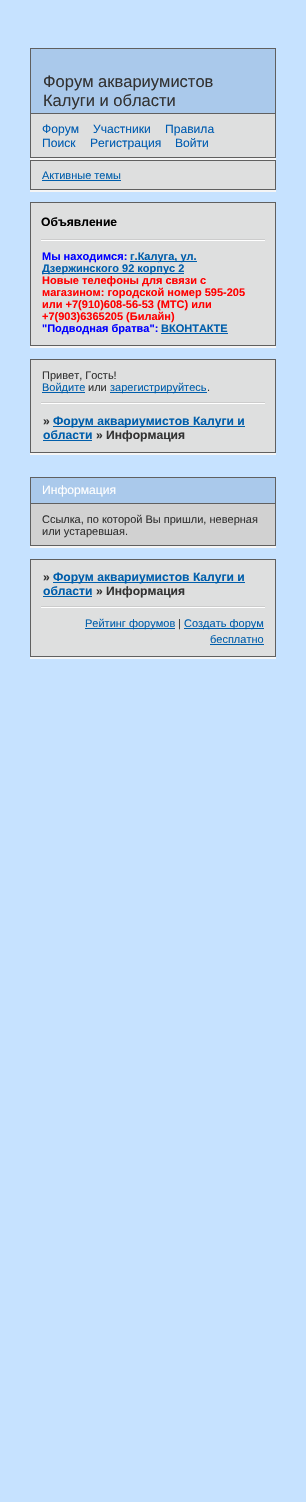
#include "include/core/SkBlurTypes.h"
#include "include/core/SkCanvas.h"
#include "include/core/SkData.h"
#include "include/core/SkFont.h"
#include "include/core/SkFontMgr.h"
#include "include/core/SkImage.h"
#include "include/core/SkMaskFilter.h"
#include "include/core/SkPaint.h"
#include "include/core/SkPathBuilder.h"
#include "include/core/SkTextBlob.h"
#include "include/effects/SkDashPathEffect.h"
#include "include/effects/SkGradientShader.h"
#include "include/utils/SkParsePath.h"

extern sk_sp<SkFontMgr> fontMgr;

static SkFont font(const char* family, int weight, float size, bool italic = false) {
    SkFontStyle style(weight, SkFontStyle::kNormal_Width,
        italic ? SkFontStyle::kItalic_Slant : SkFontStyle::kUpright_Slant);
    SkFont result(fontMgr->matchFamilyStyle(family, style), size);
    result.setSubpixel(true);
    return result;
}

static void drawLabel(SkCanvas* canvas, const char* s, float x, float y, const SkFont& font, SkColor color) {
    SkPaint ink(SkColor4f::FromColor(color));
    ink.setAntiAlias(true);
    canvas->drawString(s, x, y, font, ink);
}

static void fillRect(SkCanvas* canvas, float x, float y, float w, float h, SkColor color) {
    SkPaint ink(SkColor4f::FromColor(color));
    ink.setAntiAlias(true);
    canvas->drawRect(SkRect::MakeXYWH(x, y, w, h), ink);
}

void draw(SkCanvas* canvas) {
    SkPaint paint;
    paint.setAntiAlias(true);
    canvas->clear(0xFFC6E2FF);
    fillRect(canvas, 31, 49, 244, 64, 0xFFAAC9EB);
    fillRect(canvas, 30, 48, 246, 1, 0xFF606060);
    fillRect(canvas, 275, 48, 1, 65, 0xFF606060);
    fillRect(canvas, 30, 48, 1, 65, 0xFF606060);
    SkFont font1 = font("Liberation Sans", 400, 16.5f);
    drawLabel(canvas, "Форум аквариумистов", 43, 87, font1, 0xFF333333);
    drawLabel(canvas, "Калуги и области", 43, 106, font1, 0xFF333333);
    fillRect(canvas, 30, 158, 246, 2, 0xFFF5F5F5);
    paint.setColor(0xFFDEDFDF);
    canvas->drawRect(SkRect::MakeXYWH(30.5f, 113.5f, 245, 44), paint);
    paint.setStroke(true);
    paint.setStrokeWidth(1);
    paint.setColor(0xFF606060);
    canvas->drawRect(SkRect::MakeXYWH(30.5f, 113.5f, 245, 44), paint);
    SkFont font2 = font("Liberation Sans", 400, 12.1f);
    drawLabel(canvas, "Форум", 42, 133, font2, 0xFF005CB1);
    drawLabel(canvas, "Участники", 93, 133, font2, 0xFF005CB1);
    drawLabel(canvas, "Правила", 165, 133, font2, 0xFF005CB1);
    drawLabel(canvas, "Поиск", 42, 147, font2, 0xFF005CB1);
    drawLabel(canvas, "Регистрация", 90, 147, font2, 0xFF005CB1);
    drawLabel(canvas, "Войти", 175, 147, font2, 0xFF005CB1);
    fillRect(canvas, 30, 190, 246, 2, 0xFFF5F5F5);
    paint.setStroke(false);
    paint.setColor(0xFFDEDFDF);
    canvas->drawRect(SkRect::MakeXYWH(30.5f, 160.5f, 245, 29), paint);
    paint.setStroke(true);
    paint.setColor(0xFF606060);
    canvas->drawRect(SkRect::MakeXYWH(30.5f, 160.5f, 245, 29), paint);
    SkFont font3 = font("Liberation Sans", 400, 11);
    drawLabel(canvas, "Активные темы", 42, 179, font3, 0xFF005EAB);
    fillRect(canvas, 42, 180, 79, 1, 0xFF005EAB);
    fillRect(canvas, 30, 346, 246, 2, 0xFFF5F5F5);
    paint.setStroke(false);
    paint.setColor(0xFFDEDFDF);
    canvas->drawRect(SkRect::MakeXYWH(30.5f, 202.5f, 245, 143), paint);
    paint.setStroke(true);
    paint.setColor(0xFF606060);
    canvas->drawRect(SkRect::MakeXYWH(30.5f, 202.5f, 245, 143), paint);
    fillRect(canvas, 41, 240, 224, 1, 0xFFFFFFFF);
    fillRect(canvas, 41, 239, 224, 1, 0xFFCCCCCC);
    SkFont font4 = font("Liberation Sans", 700, 12.1f);
    drawLabel(canvas, "Объявление", 41, 226, font4, 0xFF000000);
    SkFont font5 = font("Liberation Sans", 700, 11);
    drawLabel(canvas, "Мы находимся:", 42, 260, font5, 0xFF0000FF);
    fillRect(canvas, 130, 261, 67, 1, 0xFF005EAB);
    drawLabel(canvas, "г.Калуга, ул.", 130, 260, font5, 0xFF005EAB);
    fillRect(canvas, 42, 273, 142, 1, 0xFF005EAB);
    drawLabel(canvas, "Дзержинского 92 корпус 2", 42, 272, font5, 0xFF005EAB);
    drawLabel(canvas, "Новые телефоны для связи с", 42, 284, font5, 0xFFFF0000);
    drawLabel(canvas, "магазином: городской номер 595-205", 42, 296, font5, 0xFFFF0000);
    drawLabel(canvas, "или +7(910)608-56-53 (МТС) или", 42, 308, font5, 0xFFFF0000);
    drawLabel(canvas, "+7(903)6365205 (Билайн)", 42, 320, font5, 0xFFFF0000);
    drawLabel(canvas, "\"Подводная братва\":", 42, 332, font5, 0xFF0000FF);
    drawLabel(canvas, "ВКОНТАКТЕ", 161, 332, font5, 0xFF005EAB);
    fillRect(canvas, 161, 333, 67, 1, 0xFF005EAB);
    fillRect(canvas, 31, 360, 244, 92, 0xFFDEDFDF);
    fillRect(canvas, 30, 359, 246, 1, 0xFF606060);
    fillRect(canvas, 275, 359, 1, 94, 0xFF606060);
    fillRect(canvas, 30, 359, 1, 45, 0xFF606060);
    drawLabel(canvas, "Привет, Гость!", 42, 379, font3, 0xFF333333);
    fillRect(canvas, 42, 392, 43, 1, 0xFF005EAB);
    drawLabel(canvas, "Войдите", 42, 391, font3, 0xFF005EAB);
    drawLabel(canvas, "или", 88, 391, font3, 0xFF333333);
    fillRect(canvas, 110, 392, 97, 1, 0xFF005EAB);
    drawLabel(canvas, "зарегистрируйтесь", 110, 391, font3, 0xFF005EAB);
    drawLabel(canvas, ".", 207, 391, font3, 0xFF333333);
    fillRect(canvas, 41, 402, 224, 1, 0xFFCCCCCC);
    fillRect(canvas, 41, 403, 224, 1, 0xFFFFFFFF);
    fillRect(canvas, 30, 453, 246, 2, 0xFFF5F5F5);
    fillRect(canvas, 30, 452, 246, 1, 0xFF606060);
    fillRect(canvas, 30, 402, 1, 51, 0xFF606060);
    drawLabel(canvas, "»", 43, 425, font4, 0xFF333333);
    fillRect(canvas, 53, 426, 192, 1, 0xFF005EAB);
    drawLabel(canvas, "Форум аквариумистов Калуги и", 53, 425, font4, 0xFF005EAB);
    drawLabel(canvas, "области", 43, 439, font4, 0xFF005EAB);
    fillRect(canvas, 43, 440, 49, 1, 0xFF005EAB);
    drawLabel(canvas, "» Информация", 96, 439, font4, 0xFF333333);
    fillRect(canvas, 31, 478, 244, 25, 0xFFAAC9EB);
    fillRect(canvas, 30, 477, 246, 1, 0xFF606060);
    fillRect(canvas, 275, 477, 1, 26, 0xFF606060);
    fillRect(canvas, 30, 477, 1, 26, 0xFF606060);
    drawLabel(canvas, "Информация", 42, 494, font2, 0xFFFFFFFF);
    fillRect(canvas, 30, 546, 246, 2, 0xFFF5F5F5);
    paint.setStroke(false);
    paint.setColor(0xFFD1D1D1);
    canvas->drawRect(SkRect::MakeXYWH(30.5f, 503.5f, 245, 42), paint);
    paint.setStroke(true);
    paint.setColor(0xFF606060);
    canvas->drawRect(SkRect::MakeXYWH(30.5f, 503.5f, 245, 42), paint);
    drawLabel(canvas, "Ссылка, по которой Вы пришли, неверная", 42, 523, font3, 0xFF333333);
    drawLabel(canvas, "или устаревшая.", 42, 535, font3, 0xFF333333);
    fillRect(canvas, 30, 559, 246, 1, 0xFF606060);
    fillRect(canvas, 275, 606, 1, 51, 0xFF606060);
    fillRect(canvas, 275, 559, 1, 49, 0xFF606060);
    fillRect(canvas, 30, 656, 246, 1, 0xFF606060);
    fillRect(canvas, 30, 606, 1, 51, 0xFF606060);
    fillRect(canvas, 30, 559, 1, 49, 0xFF606060);
    fillRect(canvas, 31, 560, 244, 96, 0xFFDEDFDF);
    drawLabel(canvas, "»", 43, 581, font4, 0xFF333333);
    fillRect(canvas, 53, 582, 192, 1, 0xFF005EAB);
    drawLabel(canvas, "Форум аквариумистов Калуги и", 53, 581, font4, 0xFF005EAB);
    drawLabel(canvas, "области", 43, 595, font4, 0xFF005EAB);
    fillRect(canvas, 43, 596, 49, 1, 0xFF005EAB);
    drawLabel(canvas, "» Информация", 96, 595, font4, 0xFF333333);
    fillRect(canvas, 41, 606, 224, 1, 0xFFCCCCCC);
    fillRect(canvas, 41, 607, 224, 1, 0xFFFFFFFF);
    fillRect(canvas, 30, 657, 246, 2, 0xFFF5F5F5);
    fillRect(canvas, 85, 628, 90, 1, 0xFF005EAB);
    drawLabel(canvas, "Рейтинг форумов", 85, 627, font3, 0xFF005EAB);
    drawLabel(canvas, "|", 178, 627, font3, 0xFF333333);
    fillRect(canvas, 184, 628, 80, 1, 0xFF005EAB);
    drawLabel(canvas, "Создать форум", 184, 627, font3, 0xFF005EAB);
    drawLabel(canvas, "бесплатно", 210, 643, font3, 0xFF005EAB);
    fillRect(canvas, 210, 644, 54, 1, 0xFF005EAB);
}
